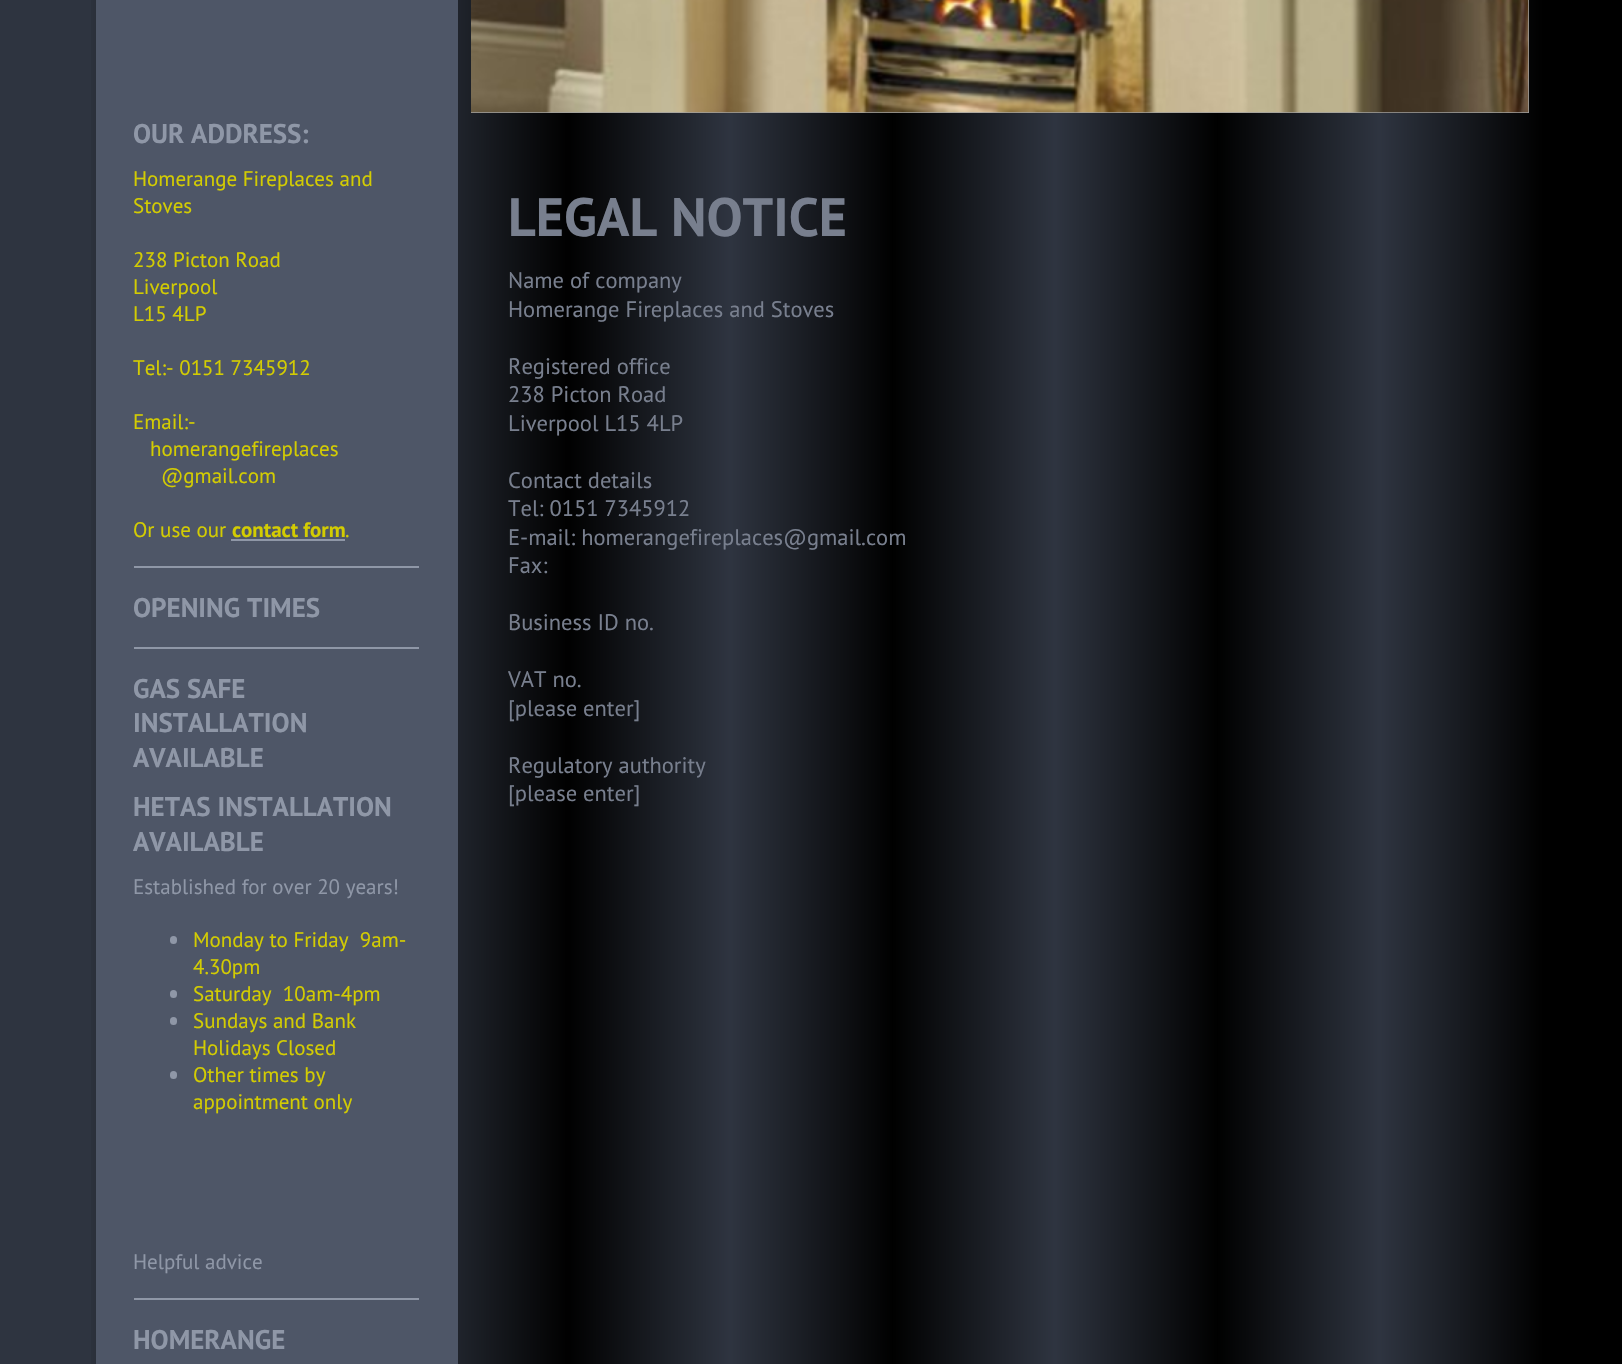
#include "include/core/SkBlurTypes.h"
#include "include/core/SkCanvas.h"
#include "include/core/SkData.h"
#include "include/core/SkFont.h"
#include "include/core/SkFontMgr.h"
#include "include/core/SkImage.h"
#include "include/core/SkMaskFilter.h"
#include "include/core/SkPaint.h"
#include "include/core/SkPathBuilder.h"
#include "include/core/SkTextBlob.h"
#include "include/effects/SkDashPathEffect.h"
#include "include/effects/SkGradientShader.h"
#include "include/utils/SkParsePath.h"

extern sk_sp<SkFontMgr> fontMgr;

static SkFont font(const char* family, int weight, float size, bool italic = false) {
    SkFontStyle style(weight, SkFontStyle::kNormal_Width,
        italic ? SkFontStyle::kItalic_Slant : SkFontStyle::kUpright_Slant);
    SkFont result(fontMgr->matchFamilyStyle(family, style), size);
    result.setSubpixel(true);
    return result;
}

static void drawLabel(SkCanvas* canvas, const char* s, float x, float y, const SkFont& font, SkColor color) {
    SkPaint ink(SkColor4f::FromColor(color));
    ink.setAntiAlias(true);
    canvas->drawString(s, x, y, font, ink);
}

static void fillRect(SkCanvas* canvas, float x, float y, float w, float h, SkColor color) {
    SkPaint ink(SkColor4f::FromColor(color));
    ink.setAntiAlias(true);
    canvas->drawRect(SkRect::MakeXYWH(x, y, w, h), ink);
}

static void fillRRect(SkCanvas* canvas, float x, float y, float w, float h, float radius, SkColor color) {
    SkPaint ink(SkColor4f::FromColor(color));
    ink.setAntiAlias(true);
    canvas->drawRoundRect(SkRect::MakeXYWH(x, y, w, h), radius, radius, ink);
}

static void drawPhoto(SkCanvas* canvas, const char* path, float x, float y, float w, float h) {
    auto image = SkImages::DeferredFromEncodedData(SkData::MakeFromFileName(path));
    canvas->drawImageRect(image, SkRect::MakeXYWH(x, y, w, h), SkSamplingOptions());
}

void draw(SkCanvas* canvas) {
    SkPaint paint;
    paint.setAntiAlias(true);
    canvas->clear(0xFF2E3440);
    drawPhoto(canvas, "assets/img1.png", 91, 0, 1531, 1364);
    fillRect(canvas, 96, 0, 362, 1364, 0xFF4E5667);
    SkFont font1 = font("PT Sans", 700, 27);
    drawLabel(canvas, "OUR ADDRESS:", 133, 143, font1, 0xFF8F97A7);
    SkFont font2 = font("PT Sans", 400, 21);
    drawLabel(canvas, "Homerange Fireplaces and", 133, 186, font2, 0xFFD3CC02);
    drawLabel(canvas, "Stoves", 133, 213, font2, 0xFFD3CC02);
    drawLabel(canvas, "238 Picton Road", 133, 267, font2, 0xFFD3CC02);
    drawLabel(canvas, "Liverpool", 133, 294, font2, 0xFFD3CC02);
    drawLabel(canvas, "L15 4LP", 133, 321, font2, 0xFFD3CC02);
    drawLabel(canvas, "Tel:- 0151 7345912", 133, 375, font2, 0xFFD3CC02);
    drawLabel(canvas, "Email:-", 133, 429, font2, 0xFFD3CC02);
    drawLabel(canvas, "homerangefireplaces", 150, 456, font2, 0xFFD3CC02);
    drawLabel(canvas, "@gmail.com", 161, 483, font2, 0xFFD3CC02);
    drawLabel(canvas, "Or use our", 133, 537, font2, 0xFFD3CC02);
    SkFont font3 = font("PT Sans", 700, 21);
    drawLabel(canvas, "contact form", 232, 537, font3, 0xFFD3CC02);
    drawLabel(canvas, ".", 345, 537, font2, 0xFFD3CC02);
    fillRect(canvas, 231, 539, 114, 2, 0xFF8F97A7);
    fillRect(canvas, 134, 566, 285, 2, 0xFF8F97A7);
    drawLabel(canvas, "OPENING TIMES", 133, 617, font1, 0xFF8F97A7);
    fillRect(canvas, 134, 647, 285, 2, 0xFF8F97A7);
    drawLabel(canvas, "GAS SAFE", 133, 698, font1, 0xFF8F97A7);
    drawLabel(canvas, "INSTALLATION", 133, 732, font1, 0xFF8F97A7);
    drawLabel(canvas, "AVAILABLE", 133, 767, font1, 0xFF8F97A7);
    drawLabel(canvas, "HETAS INSTALLATION", 133, 816, font1, 0xFF8F97A7);
    drawLabel(canvas, "AVAILABLE", 133, 851, font1, 0xFF8F97A7);
    drawLabel(canvas, "Established for over 20 years!", 133, 894, font2, 0xFF8F97A7);
    fillRRect(canvas, 170, 936, 7, 8, 3.5f, 0xFF8F97A7);
    drawLabel(canvas, "Monday to Friday  9am-", 193, 947, font2, 0xFFD3CC02);
    drawLabel(canvas, "4.30pm", 193, 974, font2, 0xFFD3CC02);
    fillRRect(canvas, 170, 990, 7, 8, 3.5f, 0xFF8F97A7);
    drawLabel(canvas, "Saturday  10am-4pm", 193, 1001, font2, 0xFFD3CC02);
    fillRRect(canvas, 170, 1017, 7, 8, 3.5f, 0xFF8F97A7);
    drawLabel(canvas, "Sundays and Bank", 193, 1028, font2, 0xFFD3CC02);
    drawLabel(canvas, "Holidays Closed", 193, 1055, font2, 0xFFD3CC02);
    fillRRect(canvas, 170, 1071, 7, 8, 3.5f, 0xFF8F97A7);
    drawLabel(canvas, "Other times by", 193, 1082, font2, 0xFFD3CC02);
    drawLabel(canvas, "appointment only", 193, 1109, font2, 0xFFD3CC02);
    drawLabel(canvas, "Helpful advice", 133, 1269, font2, 0xFF8F97A7);
    fillRect(canvas, 134, 1298, 285, 2, 0xFF8F97A7);
    drawLabel(canvas, "HOMERANGE", 133, 1349, font1, 0xFF8F97A7);
    fillRect(canvas, 471, 0, 1058, 113, 0xFFA0A0A0);
    drawPhoto(canvas, "assets/img2.png", 471, 0, 1058, 113);
    SkFont font4 = font("PT Sans", 700, 54);
    drawLabel(canvas, "LEGAL NOTICE", 508, 236, font4, 0xFF787F8E);
    SkFont font5 = font("PT Sans", 400, 22.5f);
    drawLabel(canvas, "Name of company", 508, 288, font5, 0xFF787F8E);
    drawLabel(canvas, "Homerange Fireplaces and Stoves", 508, 317, font5, 0xFF787F8E);
    drawLabel(canvas, "Registered office", 508, 374, font5, 0xFF787F8E);
    drawLabel(canvas, "238 Picton Road", 508, 402, font5, 0xFF787F8E);
    drawLabel(canvas, "Liverpool L15 4LP", 508, 431, font5, 0xFF787F8E);
    drawLabel(canvas, "Contact details", 508, 488, font5, 0xFF787F8E);
    drawLabel(canvas, "Tel: 0151 7345912", 508, 516, font5, 0xFF787F8E);
    drawLabel(canvas, "E-mail: homerangefireplaces@gmail.com", 508, 545, font5, 0xFF787F8E);
    drawLabel(canvas, "Fax:", 508, 573, font5, 0xFF787F8E);
    drawLabel(canvas, "Business ID no.", 508, 630, font5, 0xFF787F8E);
    drawLabel(canvas, "VAT no.", 508, 687, font5, 0xFF787F8E);
    drawLabel(canvas, "[please enter]", 508, 716, font5, 0xFF787F8E);
    drawLabel(canvas, "Regulatory authority", 508, 773, font5, 0xFF787F8E);
    drawLabel(canvas, "[please enter]", 508, 801, font5, 0xFF787F8E);
}
